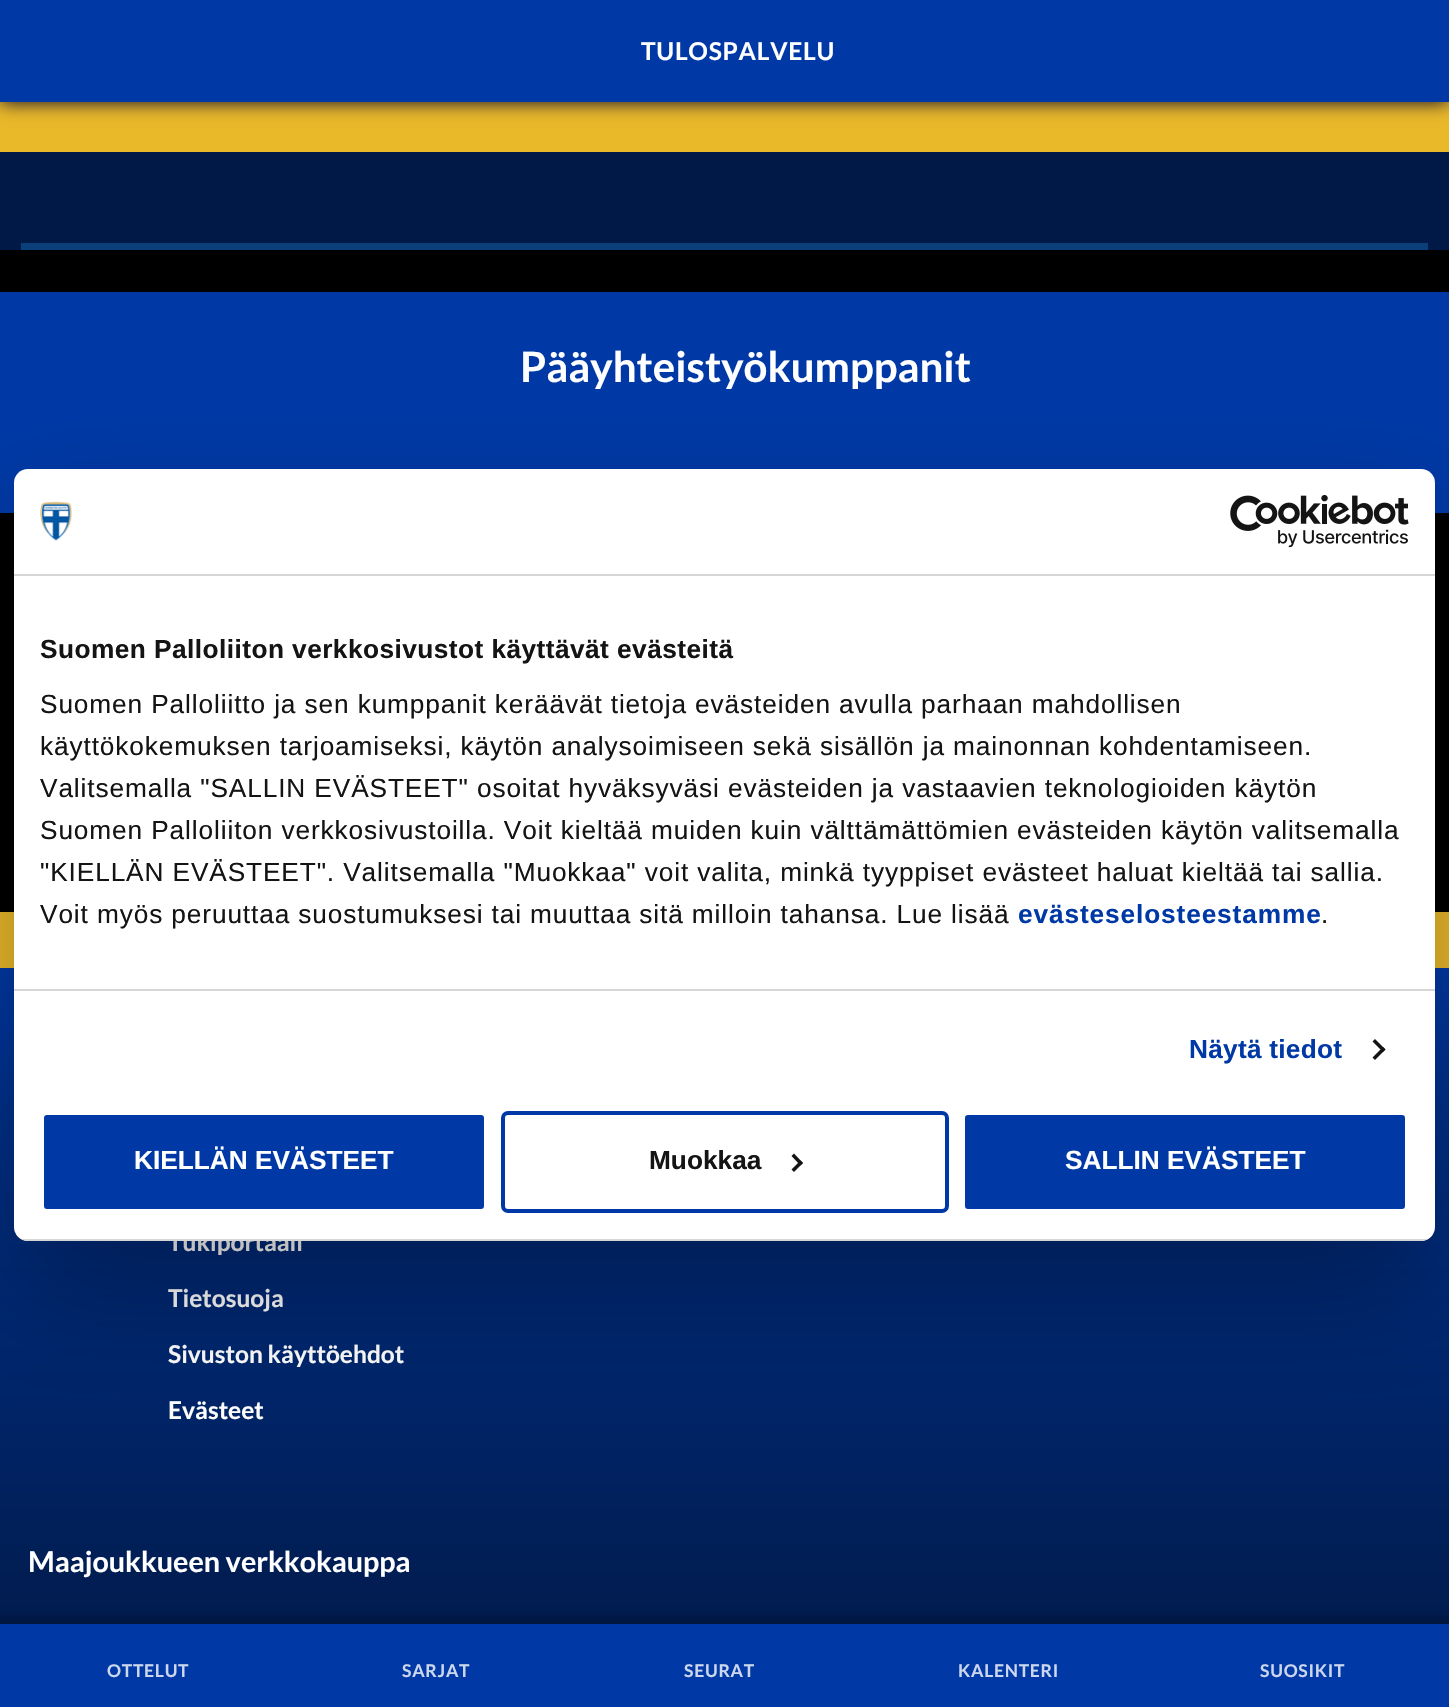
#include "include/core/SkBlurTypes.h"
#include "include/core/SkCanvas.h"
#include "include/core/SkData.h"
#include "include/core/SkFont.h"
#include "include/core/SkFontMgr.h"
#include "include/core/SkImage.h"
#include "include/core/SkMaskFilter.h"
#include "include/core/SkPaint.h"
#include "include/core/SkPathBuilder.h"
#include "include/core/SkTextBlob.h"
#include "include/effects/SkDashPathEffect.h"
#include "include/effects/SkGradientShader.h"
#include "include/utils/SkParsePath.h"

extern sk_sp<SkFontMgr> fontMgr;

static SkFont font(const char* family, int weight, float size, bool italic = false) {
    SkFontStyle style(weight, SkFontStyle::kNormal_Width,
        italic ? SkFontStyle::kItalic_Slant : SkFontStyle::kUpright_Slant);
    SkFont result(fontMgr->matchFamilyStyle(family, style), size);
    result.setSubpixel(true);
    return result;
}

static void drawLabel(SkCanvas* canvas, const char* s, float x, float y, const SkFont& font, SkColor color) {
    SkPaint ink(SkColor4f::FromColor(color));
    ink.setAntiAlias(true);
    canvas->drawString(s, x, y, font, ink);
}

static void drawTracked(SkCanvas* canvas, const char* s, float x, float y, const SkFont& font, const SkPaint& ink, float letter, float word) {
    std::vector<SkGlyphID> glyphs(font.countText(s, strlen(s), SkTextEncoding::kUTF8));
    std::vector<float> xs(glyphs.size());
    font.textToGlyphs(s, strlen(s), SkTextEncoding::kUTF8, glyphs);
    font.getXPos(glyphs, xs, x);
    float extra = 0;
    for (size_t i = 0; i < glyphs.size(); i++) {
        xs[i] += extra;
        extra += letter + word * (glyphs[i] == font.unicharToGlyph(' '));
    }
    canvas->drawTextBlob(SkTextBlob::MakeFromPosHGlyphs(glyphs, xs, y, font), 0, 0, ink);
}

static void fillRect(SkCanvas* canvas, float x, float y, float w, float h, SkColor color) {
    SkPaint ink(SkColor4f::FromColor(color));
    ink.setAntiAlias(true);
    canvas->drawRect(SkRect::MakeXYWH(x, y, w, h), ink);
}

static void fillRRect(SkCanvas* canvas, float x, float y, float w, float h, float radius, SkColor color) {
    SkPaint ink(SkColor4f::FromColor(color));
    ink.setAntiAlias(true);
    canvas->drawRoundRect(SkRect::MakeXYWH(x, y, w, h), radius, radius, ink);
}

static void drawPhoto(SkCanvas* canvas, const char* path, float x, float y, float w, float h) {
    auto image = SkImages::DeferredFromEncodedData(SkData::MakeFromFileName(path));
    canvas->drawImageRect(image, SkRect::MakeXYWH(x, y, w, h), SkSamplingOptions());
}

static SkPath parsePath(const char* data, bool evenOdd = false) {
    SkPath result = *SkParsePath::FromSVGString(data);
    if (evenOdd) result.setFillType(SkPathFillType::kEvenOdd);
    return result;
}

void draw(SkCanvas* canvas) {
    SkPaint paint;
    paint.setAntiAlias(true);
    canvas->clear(0xFF011946);
    fillRect(canvas, 0, 102, 1449, 50, 0xFFEAB92A);
    paint.setColor(0xFF000029);
    paint.setMaskFilter(SkMaskFilter::MakeBlur(kNormal_SkBlurStyle, 9));
    canvas->drawRect(SkRect::MakeXYWH(0, 0, 1449, 102), paint);
    paint.setMaskFilter(nullptr);
    fillRect(canvas, 0, 0, 1449, 102, 0xFF0039A6);
    SkFont font1 = font("Lato", 700, 24.5f);
    paint.setColor(0xFFFFFFFF);
    drawTracked(canvas, "TULOSPALVELU", 641, 60, font1, paint, 0.75f, 0);
    fillRect(canvas, 21, 243, 1407, 7, 0xFF0B3F7A);
    fillRect(canvas, 0, 250, 1449, 42, 0xFF000000);
    fillRect(canvas, 0, 292, 1449, 221, 0xFF0039A6);
    SkFont font2 = font("Lato", 700, 42);
    drawLabel(canvas, "Pääyhteistyökumppanit", 520, 382, font2, 0xFFFFFFFF);
    fillRect(canvas, 0, 513, 1449, 399, 0xFF000000);
    fillRect(canvas, 0, 912, 1449, 56, 0xFFEAB92A);
    {
        const SkColor colors[] = {0xFF0039A6, 0xFF002F88, 0xFF011946};
        const float stops[] = {0, 0.22f, 1};
        const SkPoint ends[] = {{725, 968}, {725, 1694}};
        paint.setShader(SkGradientShader::MakeLinear(ends, colors, stops, 3, SkTileMode::kClamp));
        paint.setAlpha(255);
    }
    canvas->drawRect(SkRect::MakeXYWH(0, 968, 1449, 656), paint);
    drawLabel(canvas, "Tukiportaali", 168, 1251, font1, 0xFFFFFFFF);
    drawLabel(canvas, "Tietosuoja", 168, 1307, font1, 0xFFFFFFFF);
    drawLabel(canvas, "Sivuston käyttöehdot", 168, 1363, font1, 0xFFFFFFFF);
    drawLabel(canvas, "Evästeet", 168, 1419, font1, 0xFFFFFFFF);
    SkFont font3 = font("Lato", 700, 28.7f);
    drawLabel(canvas, "Maajoukkueen verkkokauppa", 28, 1572, font3, 0xFFFFFFFF);
    paint.setShader(nullptr);
    paint.setColor(0x33000000);
    paint.setMaskFilter(SkMaskFilter::MakeBlur(kNormal_SkBlurStyle, 3.5f));
    canvas->drawRect(SkRect::MakeXYWH(-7, 1617, 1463, 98), paint);
    paint.setMaskFilter(nullptr);
    fillRect(canvas, 0, 1624, 1449, 83, 0xFF0039A6);
    SkFont font4 = font("Lato", 700, 17.5f);
    paint.setColor(0xFFCCD7ED);
    drawTracked(canvas, "OTTELUT", 107, 1677, font4, paint, 0.75f, 0);
    drawTracked(canvas, "SARJAT", 402, 1677, font4, paint, 0.75f, 0);
    drawTracked(canvas, "SEURAT", 684, 1677, font4, paint, 0.75f, 0);
    drawTracked(canvas, "KALENTERI", 958, 1677, font4, paint, 0.75f, 0);
    drawTracked(canvas, "SUOSIKIT", 1260, 1677, font4, paint, 0.75f, 0);
    paint.setColor(0x4D000000);
    paint.setMaskFilter(SkMaskFilter::MakeBlur(kNormal_SkBlurStyle, 59.5f));
    canvas->drawRoundRect(SkRect::MakeXYWH(14, 525, 1421, 772), 14, 14, paint);
    paint.setMaskFilter(nullptr);
    fillRRect(canvas, 14, 469, 1421, 772, 14, 0xFFFFFFFF);
    fillRect(canvas, 14, 574, 1421, 2, 0xFFD6D6D6);
    drawPhoto(canvas, "assets/img1.png", 40, 501, 32, 40);
    drawPhoto(canvas, "assets/img2.png", 1230, 495, 179, 53);
    fillRect(canvas, 14, 989, 1421, 2, 0xFFD6D6D6);
    SkFont font5 = font("Liberation Sans", 700, 26.25f);
    paint.setColor(0xFF141414);
    drawTracked(canvas, "Suomen Palloliiton verkkosivustot käyttävät evästeitä", 40, 658, font5, paint, 0.45f, 0);
    SkFont font6 = font("Liberation Sans", 400, 26.25f);
    drawTracked(canvas, "Suomen Palloliitto ja sen kumppanit keräävät tietoja evästeiden avulla parhaan mahdollisen", 40, 713, font6, paint, 0.88f, 0);
    drawTracked(canvas, "käyttökokemuksen tarjoamiseksi, käytön analysoimiseen sekä sisällön ja mainonnan kohdentamiseen.", 40, 755, font6, paint, 0.88f, 0);
    drawTracked(canvas, "Valitsemalla \"SALLIN EVÄSTEET\" osoitat hyväksyväsi evästeiden ja vastaavien teknologioiden käytön", 40, 797, font6, paint, 0.88f, 0);
    drawTracked(canvas, "Suomen Palloliiton verkkosivustoilla. Voit kieltää muiden kuin välttämättömien evästeiden käytön valitsemalla", 40, 839, font6, paint, 0.88f, 0);
    drawTracked(canvas, "\"KIELLÄN EVÄSTEET\". Valitsemalla \"Muokkaa\" voit valita, minkä tyyppiset evästeet haluat kieltää tai sallia.", 40, 881, font6, paint, 0.88f, 0);
    drawTracked(canvas, "Voit myös peruuttaa suostumuksesi tai muuttaa sitä milloin tahansa. Lue lisää", 40, 923, font6, paint, 0.88f, 0);
    paint.setColor(0xFF0039A6);
    drawTracked(canvas, "evästeselosteestamme", 1018, 923, font5, paint, 0.88f, 0);
    paint.setColor(0xFF141414);
    drawTracked(canvas, ".", 1321, 923, font6, paint, 0.88f, 0);
    paint.setColor(0xFF0039A6);
    drawTracked(canvas, "Näytä tiedot", 1189, 1058, font5, paint, 0.25f, 0);
    paint.setColor(0xFF141414);
    canvas->drawPath(parsePath("M1375 1039L1385.5 1049.5L1383 1052L1372.5 1041.5Z"), paint);
    canvas->drawPath(parsePath("M1383 1047L1385.5 1049.5L1375 1060L1372.5 1057.5Z"), paint);
    canvas->save();
    canvas->clipPath(parsePath("M28 469H1421C1428.5 469 1435 475.5 1435 483V1227C1435 1234.5 1428.5 1241 1421 1241H28C20.5 1241 14 1234.5 14 1227V483C14 475.5 20.5 469 28 469Z"), true);
    fillRect(canvas, 14, 1239, 1421, 2, 0xFFD6D6D6);
    canvas->restore();
    paint.setColor(0xFF0039A6);
    canvas->drawRoundRect(SkRect::MakeXYWH(42, 1113, 444, 98), 5, 5, paint);
    paint.setStroke(true);
    paint.setStrokeWidth(4);
    paint.setColor(0xFFFFFFFF);
    canvas->drawRoundRect(SkRect::MakeXYWH(42, 1113, 444, 98), 5, 5, paint);
    drawLabel(canvas, "KIELLÄN EVÄSTEET", 134, 1169, font5, 0xFFFFFFFF);
    paint.setColor(0xFF0039A6);
    canvas->drawRoundRect(SkRect::MakeXYWH(503, 1113, 444, 98), 5, 5, paint);
    drawLabel(canvas, "Muokkaa", 649, 1169, font5, 0xFF141414);
    paint.setStroke(false);
    paint.setColor(0xFF141414);
    canvas->drawPath(parsePath("M794 1153.5L803 1163L800.5 1165.5L791.5 1156Z"), paint);
    canvas->drawPath(parsePath("M800.5 1160.5L803 1163L794 1172L791.5 1169.5Z"), paint);
    paint.setColor(0xFF0039A6);
    canvas->drawRoundRect(SkRect::MakeXYWH(963, 1113, 444, 98), 5, 5, paint);
    paint.setStroke(true);
    paint.setColor(0xFFFFFFFF);
    canvas->drawRoundRect(SkRect::MakeXYWH(963, 1113, 444, 98), 5, 5, paint);
    drawLabel(canvas, "SALLIN EVÄSTEET", 1065, 1169, font5, 0xFFFFFFFF);
}
